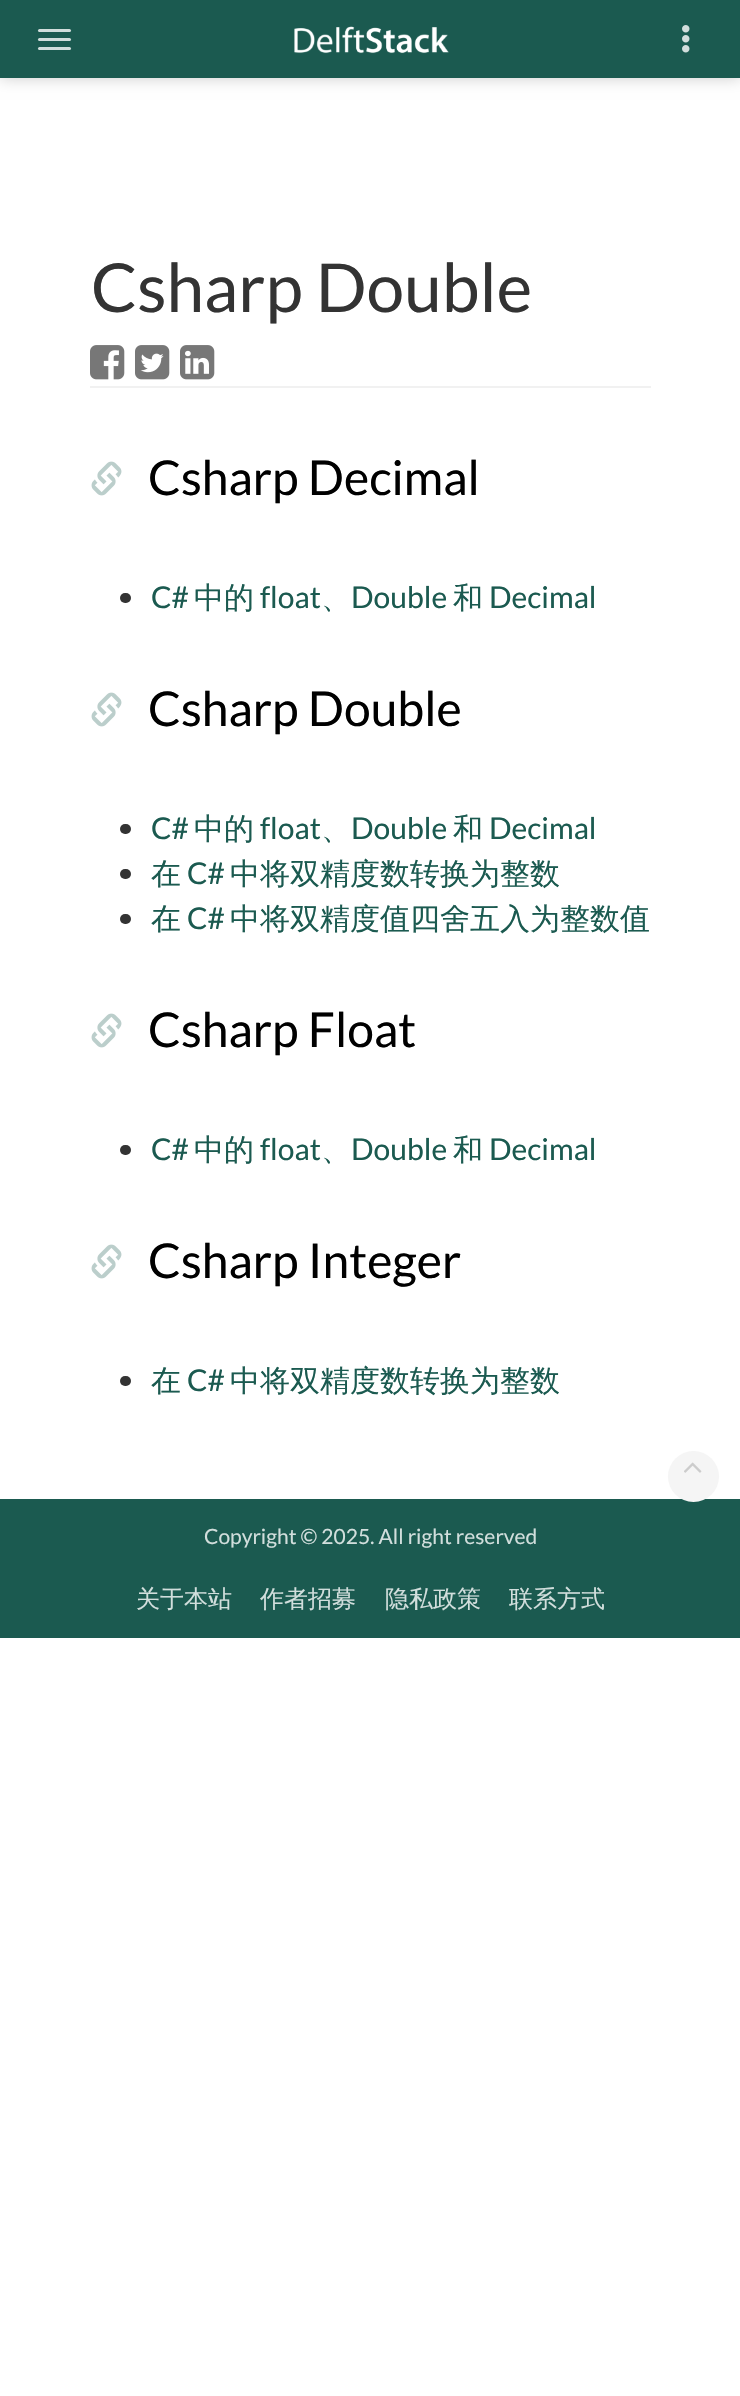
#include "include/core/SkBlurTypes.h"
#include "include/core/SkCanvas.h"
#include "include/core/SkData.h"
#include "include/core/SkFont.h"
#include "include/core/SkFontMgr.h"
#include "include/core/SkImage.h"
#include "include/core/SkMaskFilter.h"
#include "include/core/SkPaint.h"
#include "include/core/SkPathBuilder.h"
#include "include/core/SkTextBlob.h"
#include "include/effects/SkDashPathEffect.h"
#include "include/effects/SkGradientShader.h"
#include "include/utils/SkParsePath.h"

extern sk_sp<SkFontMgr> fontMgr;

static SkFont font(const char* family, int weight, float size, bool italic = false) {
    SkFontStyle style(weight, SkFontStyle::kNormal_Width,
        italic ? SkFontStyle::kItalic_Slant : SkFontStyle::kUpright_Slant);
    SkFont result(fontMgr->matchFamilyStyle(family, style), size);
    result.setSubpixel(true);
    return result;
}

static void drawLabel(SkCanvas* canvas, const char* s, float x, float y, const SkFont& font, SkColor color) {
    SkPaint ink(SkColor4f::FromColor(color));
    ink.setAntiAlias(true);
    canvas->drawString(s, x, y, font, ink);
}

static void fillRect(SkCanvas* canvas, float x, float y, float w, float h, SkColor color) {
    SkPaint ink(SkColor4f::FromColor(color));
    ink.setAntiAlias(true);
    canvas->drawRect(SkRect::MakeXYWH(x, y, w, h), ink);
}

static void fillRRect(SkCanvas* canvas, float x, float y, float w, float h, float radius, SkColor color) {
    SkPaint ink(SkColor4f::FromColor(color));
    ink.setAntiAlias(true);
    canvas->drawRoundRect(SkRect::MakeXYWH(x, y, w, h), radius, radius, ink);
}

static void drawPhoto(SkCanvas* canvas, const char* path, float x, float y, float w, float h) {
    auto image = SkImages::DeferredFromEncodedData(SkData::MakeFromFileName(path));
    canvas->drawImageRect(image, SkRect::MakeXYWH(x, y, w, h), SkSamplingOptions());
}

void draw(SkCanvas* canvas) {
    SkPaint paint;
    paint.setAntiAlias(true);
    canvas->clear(0xFFFFFFFF);
    paint.setColor(0x33000000);
    paint.setMaskFilter(SkMaskFilter::MakeBlur(kNormal_SkBlurStyle, 7.5f));
    canvas->drawRect(SkRect::MakeXYWH(0, 0, 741, 78), paint);
    paint.setMaskFilter(nullptr);
    fillRect(canvas, 0, 0, 740, 78, 0xFF1B5A50);
    fillRRect(canvas, 38, 29, 33, 3, 1.5f, 0xFFD1DEDC);
    fillRRect(canvas, 38, 38, 33, 3, 1.5f, 0xFFD1DEDC);
    fillRRect(canvas, 38, 47, 33, 3, 1.5f, 0xFFD1DEDC);
    drawPhoto(canvas, "assets/img1.png", 294, 26, 155, 28);
    drawPhoto(canvas, "assets/img2.png", 682, 25, 8, 28);
    fillRect(canvas, 90, 386, 561, 2, 0xFFF1F1F1);
    SkFont font1 = font("Lato", 400, 67.5f);
    drawLabel(canvas, "Csharp Double", 91, 312, font1, 0xFF333333);
    drawPhoto(canvas, "assets/img3.png", 90, 345, 35, 35);
    drawPhoto(canvas, "assets/img4.png", 135, 345, 35, 35);
    drawPhoto(canvas, "assets/img5.png", 180, 345, 35, 35);
    drawPhoto(canvas, "assets/img6.png", 91, 461, 31, 35);
    SkFont font2 = font("Lato", 400, 48);
    drawLabel(canvas, "Csharp Decimal", 148, 495, font2, 0xFF000000);
    fillRRect(canvas, 120, 593, 11, 10, 5, 0xFF333333);
    SkFont font3 = font("Lato", 400, 30);
    drawLabel(canvas, "C#", 151, 608, font3, 0xFF1B5A50);
    SkFont font4 = font("WenQuanYi Zen Hei", 500, 30);
    drawLabel(canvas, "中的", 194, 608, font4, 0xFF1B5A50);
    drawLabel(canvas, "float", 260, 608, font3, 0xFF1B5A50);
    drawLabel(canvas, "Double", 351, 608, font3, 0xFF1B5A50);
    drawLabel(canvas, "和", 453, 608, font4, 0xFF1B5A50);
    drawLabel(canvas, "Decimal", 489, 608, font3, 0xFF1B5A50);
    drawLabel(canvas, "、", 321, 608, font4, 0xFF1B5A50);
    drawPhoto(canvas, "assets/img6.png", 91, 692, 31, 35);
    drawLabel(canvas, "Csharp Double", 148, 726, font2, 0xFF000000);
    fillRRect(canvas, 120, 824, 11, 10, 5, 0xFF333333);
    drawLabel(canvas, "C#", 151, 839, font3, 0xFF1B5A50);
    drawLabel(canvas, "中的", 194, 839, font4, 0xFF1B5A50);
    drawLabel(canvas, "float", 260, 839, font3, 0xFF1B5A50);
    drawLabel(canvas, "Double", 351, 839, font3, 0xFF1B5A50);
    drawLabel(canvas, "和", 453, 839, font4, 0xFF1B5A50);
    drawLabel(canvas, "Decimal", 489, 839, font3, 0xFF1B5A50);
    drawLabel(canvas, "、", 321, 839, font4, 0xFF1B5A50);
    fillRRect(canvas, 120, 869, 11, 10, 5, 0xFF333333);
    drawLabel(canvas, "在", 151, 884, font4, 0xFF1B5A50);
    drawLabel(canvas, "C#", 187, 884, font3, 0xFF1B5A50);
    drawLabel(canvas, "中将双精度数转换为整数", 230, 884, font4, 0xFF1B5A50);
    fillRRect(canvas, 120, 914, 11, 10, 5, 0xFF333333);
    drawLabel(canvas, "在", 151, 929, font4, 0xFF1B5A50);
    drawLabel(canvas, "C#", 187, 929, font3, 0xFF1B5A50);
    drawLabel(canvas, "中将双精度值四舍五入为整数值", 230, 929, font4, 0xFF1B5A50);
    drawPhoto(canvas, "assets/img6.png", 91, 1013, 31, 35);
    drawLabel(canvas, "Csharp Float", 148, 1047, font2, 0xFF000000);
    fillRRect(canvas, 120, 1145, 11, 10, 5, 0xFF333333);
    drawLabel(canvas, "C#", 151, 1160, font3, 0xFF1B5A50);
    drawLabel(canvas, "中的", 194, 1160, font4, 0xFF1B5A50);
    drawLabel(canvas, "float", 260, 1160, font3, 0xFF1B5A50);
    drawLabel(canvas, "Double", 351, 1160, font3, 0xFF1B5A50);
    drawLabel(canvas, "和", 453, 1160, font4, 0xFF1B5A50);
    drawLabel(canvas, "Decimal", 489, 1160, font3, 0xFF1B5A50);
    drawLabel(canvas, "、", 321, 1160, font4, 0xFF1B5A50);
    drawPhoto(canvas, "assets/img6.png", 91, 1244, 31, 35);
    drawLabel(canvas, "Csharp Integer", 148, 1278, font2, 0xFF000000);
    fillRRect(canvas, 120, 1376, 11, 10, 5, 0xFF333333);
    drawLabel(canvas, "在", 151, 1391, font4, 0xFF1B5A50);
    drawLabel(canvas, "C#", 187, 1391, font3, 0xFF1B5A50);
    drawLabel(canvas, "中将双精度数转换为整数", 230, 1391, font4, 0xFF1B5A50);
    fillRect(canvas, 0, 1499, 740, 139, 0xFF1B5A50);
    paint.setColor(0xFFF5F5F5);
    canvas->drawCircle(693.5f, 1476.5f, 25.5f, paint);
    drawPhoto(canvas, "assets/img7.png", 684, 1462, 18, 11);
    SkFont font5 = font("Lato", 400, 21);
    drawLabel(canvas, "Copyright © 2025. All right reserved", 204, 1544, font5, 0xFFD1DEDC);
    SkFont font6 = font("WenQuanYi Zen Hei", 500, 24);
    drawLabel(canvas, "关于本站", 136, 1607, font6, 0xFFD1DEDC);
    drawLabel(canvas, "作者招募", 260, 1607, font6, 0xFFD1DEDC);
    drawLabel(canvas, "隐私政策", 385, 1607, font6, 0xFFD1DEDC);
    drawLabel(canvas, "联系方式", 509, 1607, font6, 0xFFD1DEDC);
}
